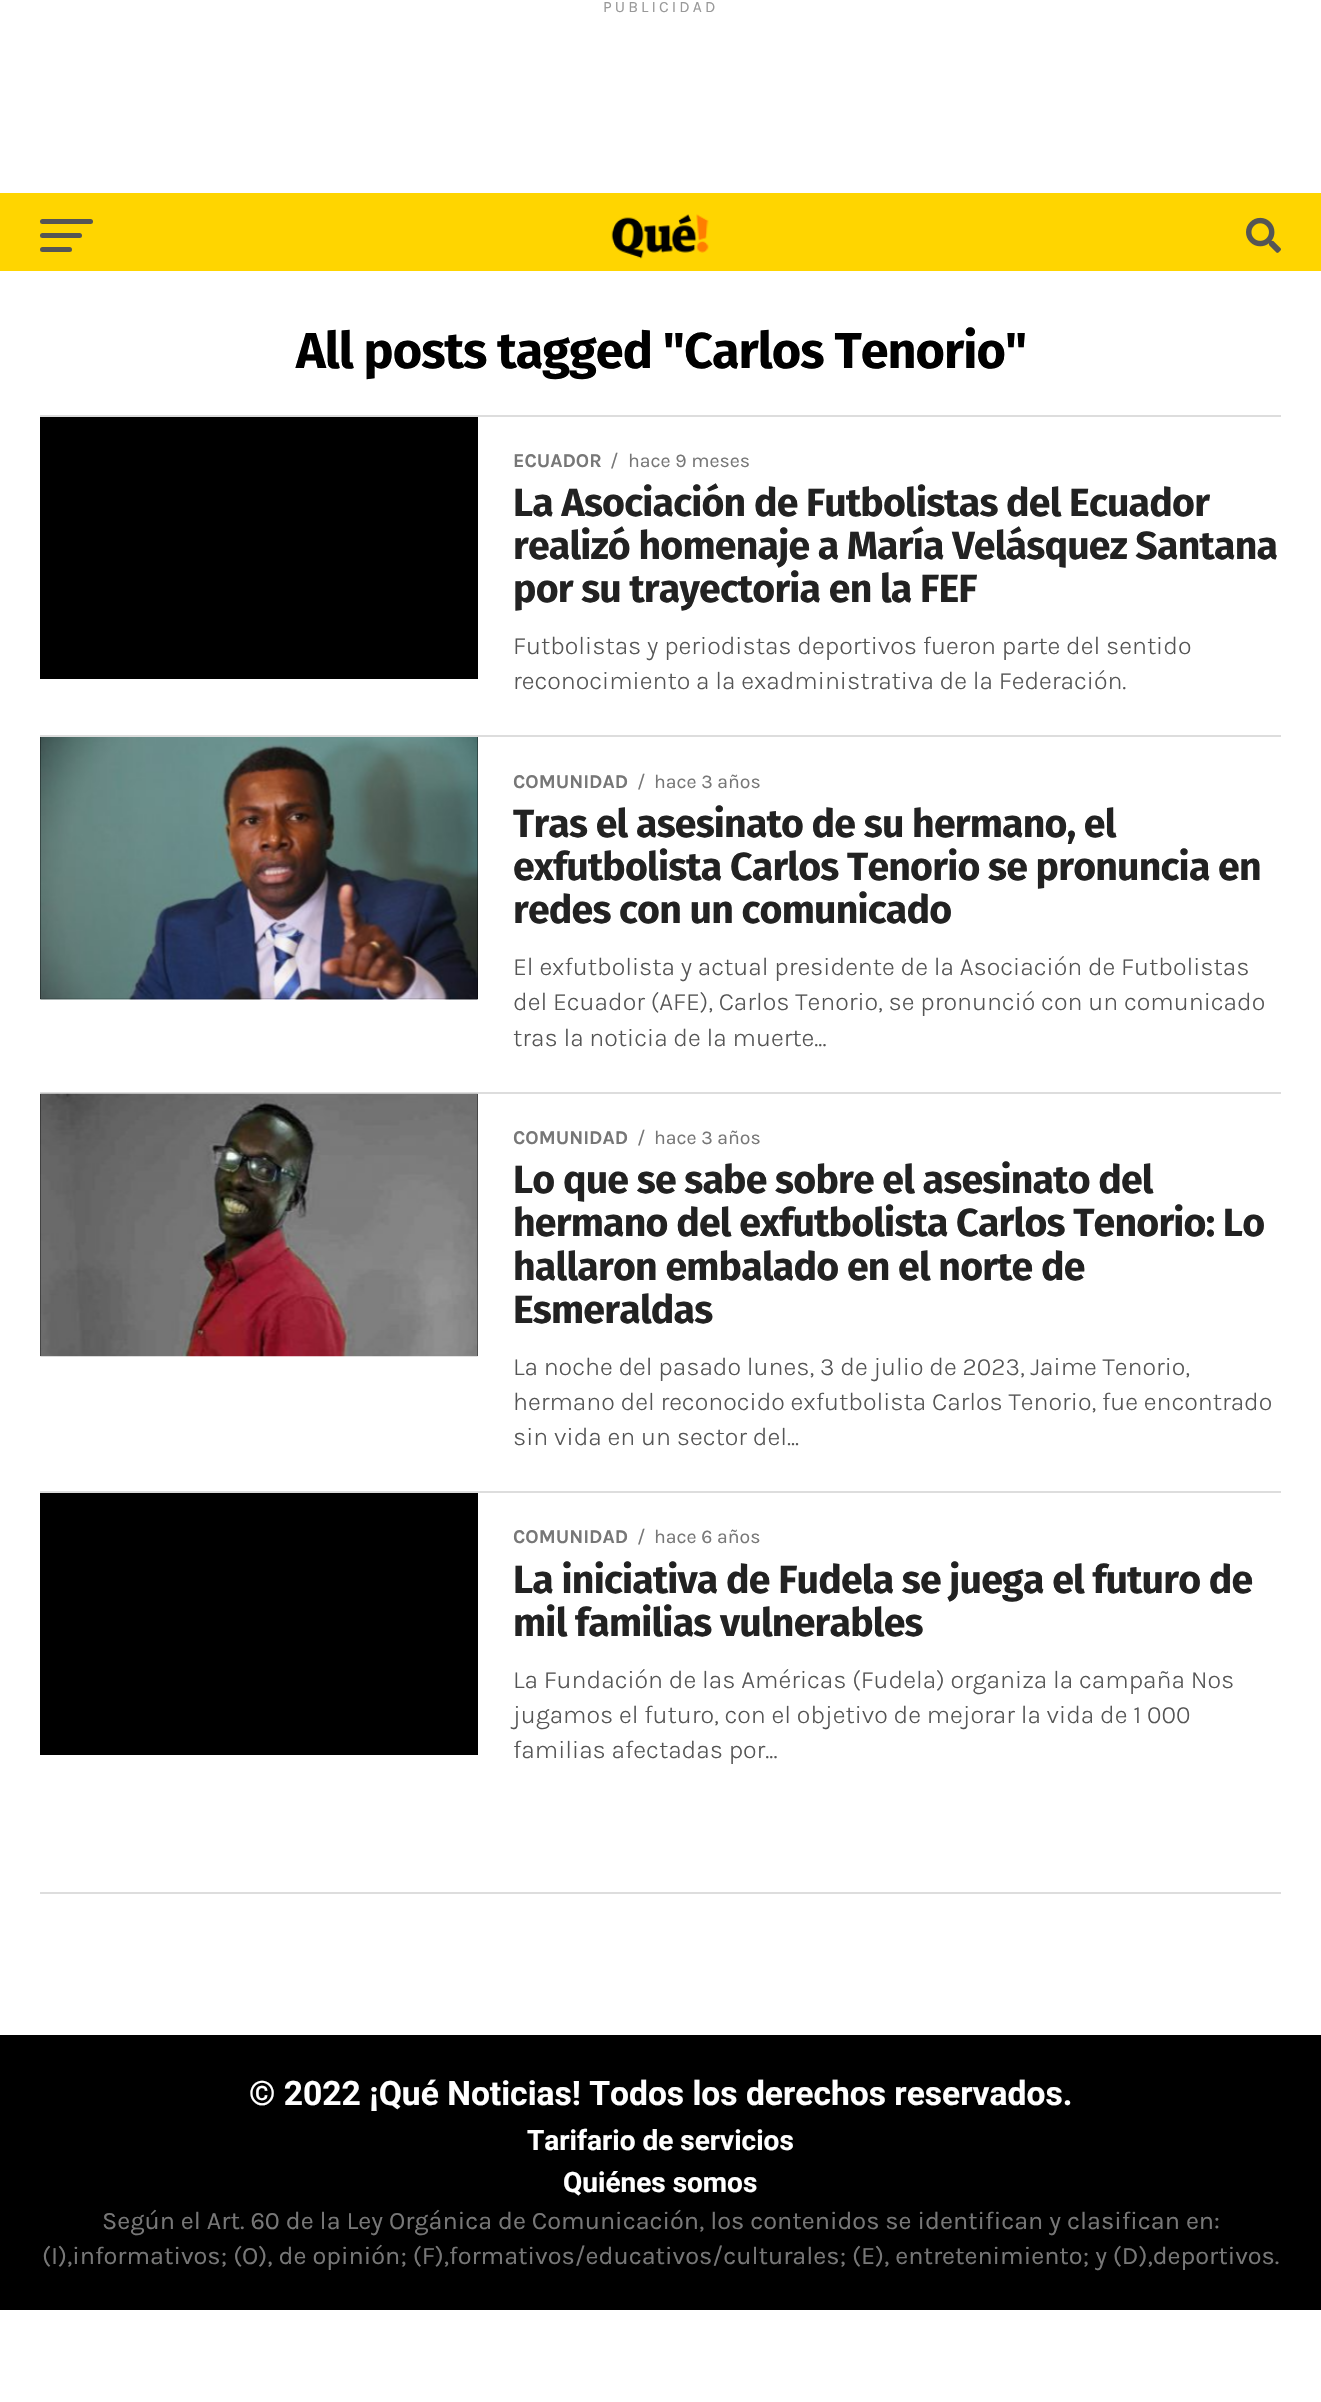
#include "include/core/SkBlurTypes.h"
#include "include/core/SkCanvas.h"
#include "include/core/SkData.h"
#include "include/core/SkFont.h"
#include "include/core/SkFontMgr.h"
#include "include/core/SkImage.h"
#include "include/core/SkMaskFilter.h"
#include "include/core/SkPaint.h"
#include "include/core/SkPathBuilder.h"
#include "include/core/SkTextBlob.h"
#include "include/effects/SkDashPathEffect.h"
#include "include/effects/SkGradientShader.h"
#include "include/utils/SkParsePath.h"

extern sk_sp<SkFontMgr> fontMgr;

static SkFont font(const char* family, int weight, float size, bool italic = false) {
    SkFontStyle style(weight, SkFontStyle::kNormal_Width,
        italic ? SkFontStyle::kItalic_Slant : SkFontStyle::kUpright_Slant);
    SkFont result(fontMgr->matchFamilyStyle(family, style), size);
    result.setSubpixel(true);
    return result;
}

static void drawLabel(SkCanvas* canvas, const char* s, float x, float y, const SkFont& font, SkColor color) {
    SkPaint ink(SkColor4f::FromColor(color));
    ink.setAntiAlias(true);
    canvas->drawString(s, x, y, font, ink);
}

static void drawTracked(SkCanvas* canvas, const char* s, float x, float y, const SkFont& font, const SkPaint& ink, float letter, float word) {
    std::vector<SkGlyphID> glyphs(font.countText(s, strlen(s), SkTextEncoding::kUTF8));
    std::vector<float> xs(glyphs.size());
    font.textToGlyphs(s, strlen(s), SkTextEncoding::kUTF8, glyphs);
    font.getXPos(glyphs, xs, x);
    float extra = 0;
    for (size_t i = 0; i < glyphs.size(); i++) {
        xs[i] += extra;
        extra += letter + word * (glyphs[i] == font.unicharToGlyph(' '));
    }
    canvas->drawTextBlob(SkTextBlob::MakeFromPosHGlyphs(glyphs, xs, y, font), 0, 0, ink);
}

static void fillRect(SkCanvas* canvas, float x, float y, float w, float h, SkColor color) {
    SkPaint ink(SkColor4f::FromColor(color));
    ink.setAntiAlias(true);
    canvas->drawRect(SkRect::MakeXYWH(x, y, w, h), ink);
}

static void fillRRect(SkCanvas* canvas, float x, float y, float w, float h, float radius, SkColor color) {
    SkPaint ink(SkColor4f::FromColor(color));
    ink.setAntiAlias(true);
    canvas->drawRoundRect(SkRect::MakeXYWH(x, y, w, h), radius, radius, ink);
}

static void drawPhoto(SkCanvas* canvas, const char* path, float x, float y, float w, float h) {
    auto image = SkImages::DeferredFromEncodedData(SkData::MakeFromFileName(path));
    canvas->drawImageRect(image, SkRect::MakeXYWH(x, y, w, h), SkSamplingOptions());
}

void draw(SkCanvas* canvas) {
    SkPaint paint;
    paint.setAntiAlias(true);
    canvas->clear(0xFFFFFFFF);
    SkFont font1 = font("Karla", 400, 15.75f);
    paint.setColor(0xFF999999);
    drawTracked(canvas, "PUBLICIDAD", 603, 12, font1, paint, 3.1f, 0);
    fillRect(canvas, 0, 193, 1321, 78, 0xFFFFD500);
    fillRRect(canvas, 40, 219, 53, 5, 2.5f, 0xFF555555);
    fillRRect(canvas, 40, 233, 42, 5, 2.5f, 0xFF555555);
    fillRRect(canvas, 40, 247, 32, 5, 2.5f, 0xFF555555);
    drawPhoto(canvas, "assets/img1.png", 611, 214, 98, 45);
    drawPhoto(canvas, "assets/img2.png", 1246, 217, 35, 36);
    SkFont font2 = font("Fira Sans", 700, 50.4f);
    paint.setColor(0xFF000000);
    drawTracked(canvas, "All posts tagged \"Carlos Tenorio\"", 296, 368, font2, paint, -1, 0);
    fillRect(canvas, 40, 415, 1241, 2, 0xFFDDDDDD);
    fillRect(canvas, 40, 417, 438, 262, 0xFF000000);
    SkFont font3 = font("Karla", 700, 19.5f);
    drawLabel(canvas, "ECUADOR", 513, 467, font3, 0xFF777777);
    SkFont font4 = font("Karla", 400, 19.5f);
    drawLabel(canvas, "/", 610, 467, font4, 0xFF777777);
    drawLabel(canvas, "hace 9 meses", 628, 467, font4, 0xFF777777);
    SkFont font5 = font("Fira Sans", 700, 39.25f);
    paint.setColor(0xFF222222);
    drawTracked(canvas, "La Asociación de Futbolistas del Ecuador", 513, 516, font5, paint, -0.8f, 0);
    drawTracked(canvas, "realizó homenaje a María Velásquez Santana", 513, 559, font5, paint, -0.8f, 0);
    drawTracked(canvas, "por su trayectoria en la FEF", 513, 602, font5, paint, -0.8f, 0);
    SkFont font6 = font("Karla", 300, 25.2f);
    drawLabel(canvas, "Futbolistas y periodistas deportivos fueron parte del sentido", 513, 654, font6, 0xFF555555);
    drawLabel(canvas, "reconocimiento a la exadministrativa de la Federación.", 513, 689, font6, 0xFF555555);
    fillRect(canvas, 40, 735, 1241, 2, 0xFFDDDDDD);
    fillRect(canvas, 40, 737, 438, 262, 0xFF000000);
    drawPhoto(canvas, "assets/img3.png", 40, 737, 438, 263);
    drawLabel(canvas, "COMUNIDAD", 513, 788, font3, 0xFF777777);
    drawLabel(canvas, "/", 637, 788, font4, 0xFF777777);
    drawLabel(canvas, "hace 3 años", 654, 788, font4, 0xFF777777);
    drawTracked(canvas, "Tras el asesinato de su hermano, el", 513, 837, font5, paint, -0.8f, 0);
    drawTracked(canvas, "exfutbolista Carlos Tenorio se pronuncia en", 513, 880, font5, paint, -0.8f, 0);
    drawTracked(canvas, "redes con un comunicado", 513, 923, font5, paint, -0.8f, 0);
    drawLabel(canvas, "El exfutbolista y actual presidente de la Asociación de Futbolistas", 513, 975, font6, 0xFF555555);
    drawLabel(canvas, "del Ecuador (AFE), Carlos Tenorio, se pronunció con un comunicado", 513, 1010, font6, 0xFF555555);
    drawLabel(canvas, "tras la noticia de la muerte...", 513, 1046, font6, 0xFF555555);
    fillRect(canvas, 40, 1092, 1241, 2, 0xFFDDDDDD);
    fillRect(canvas, 40, 1094, 438, 262, 0xFF000000);
    drawPhoto(canvas, "assets/img4.png", 40, 1093, 438, 264);
    drawLabel(canvas, "COMUNIDAD", 513, 1144, font3, 0xFF777777);
    drawLabel(canvas, "/", 637, 1144, font4, 0xFF777777);
    drawLabel(canvas, "hace 3 años", 654, 1144, font4, 0xFF777777);
    drawTracked(canvas, "Lo que se sabe sobre el asesinato del", 513, 1193, font5, paint, -0.8f, 0);
    drawTracked(canvas, "hermano del exfutbolista Carlos Tenorio: Lo", 513, 1236, font5, paint, -0.8f, 0);
    drawTracked(canvas, "hallaron embalado en el norte de", 513, 1280, font5, paint, -0.8f, 0);
    drawTracked(canvas, "Esmeraldas", 513, 1323, font5, paint, -0.8f, 0);
    drawLabel(canvas, "La noche del pasado lunes, 3 de julio de 2023, Jaime Tenorio,", 513, 1375, font6, 0xFF555555);
    drawLabel(canvas, "hermano del reconocido exfutbolista Carlos Tenorio, fue encontrado", 513, 1410, font6, 0xFF555555);
    drawLabel(canvas, "sin vida en un sector del...", 513, 1445, font6, 0xFF555555);
    fillRect(canvas, 40, 1491, 1241, 2, 0xFFDDDDDD);
    fillRect(canvas, 40, 1493, 438, 262, 0xFF000000);
    drawLabel(canvas, "COMUNIDAD", 513, 1543, font3, 0xFF777777);
    drawLabel(canvas, "/", 637, 1543, font4, 0xFF777777);
    drawLabel(canvas, "hace 6 años", 654, 1543, font4, 0xFF777777);
    drawTracked(canvas, "La iniciativa de Fudela se juega el futuro de", 513, 1593, font5, paint, -0.8f, 0);
    drawTracked(canvas, "mil familias vulnerables", 513, 1636, font5, paint, -0.8f, 0);
    drawLabel(canvas, "La Fundación de las Américas (Fudela) organiza la campaña Nos", 513, 1688, font6, 0xFF555555);
    drawLabel(canvas, "jugamos el futuro, con el objetivo de mejorar la vida de 1 000", 513, 1723, font6, 0xFF555555);
    drawLabel(canvas, "familias afectadas por...", 513, 1758, font6, 0xFF555555);
    fillRect(canvas, 40, 1892, 1241, 2, 0xFFDDDDDD);
    fillRect(canvas, 0, 2035, 1321, 275, 0xFF000000);
    SkFont font7 = font("Roboto", 700, 33.6f);
    drawLabel(canvas, "© 2022 ¡Qué Noticias! Todos los derechos reservados.", 249, 2105, font7, 0xFFFFFFFF);
    SkFont font8 = font("Roboto", 700, 28);
    drawLabel(canvas, "Tarifario de servicios", 527, 2150, font8, 0xFFFFFFFF);
    drawLabel(canvas, "Quiénes somos", 563, 2192, font8, 0xFFFFFFFF);
    SkFont font9 = font("Karla", 400, 25.2f);
    drawLabel(canvas, "Según el Art. 60 de la Ley Orgánica de Comunicación, los contenidos se identifican y clasifican en:", 102, 2229, font9, 0xFF777777);
    drawLabel(canvas, "(I),informativos; (O), de opinión; (F),formativos/educativos/culturales; (E), entretenimiento; y (D),deportivos.", 42, 2264, font9, 0xFF777777);
}
